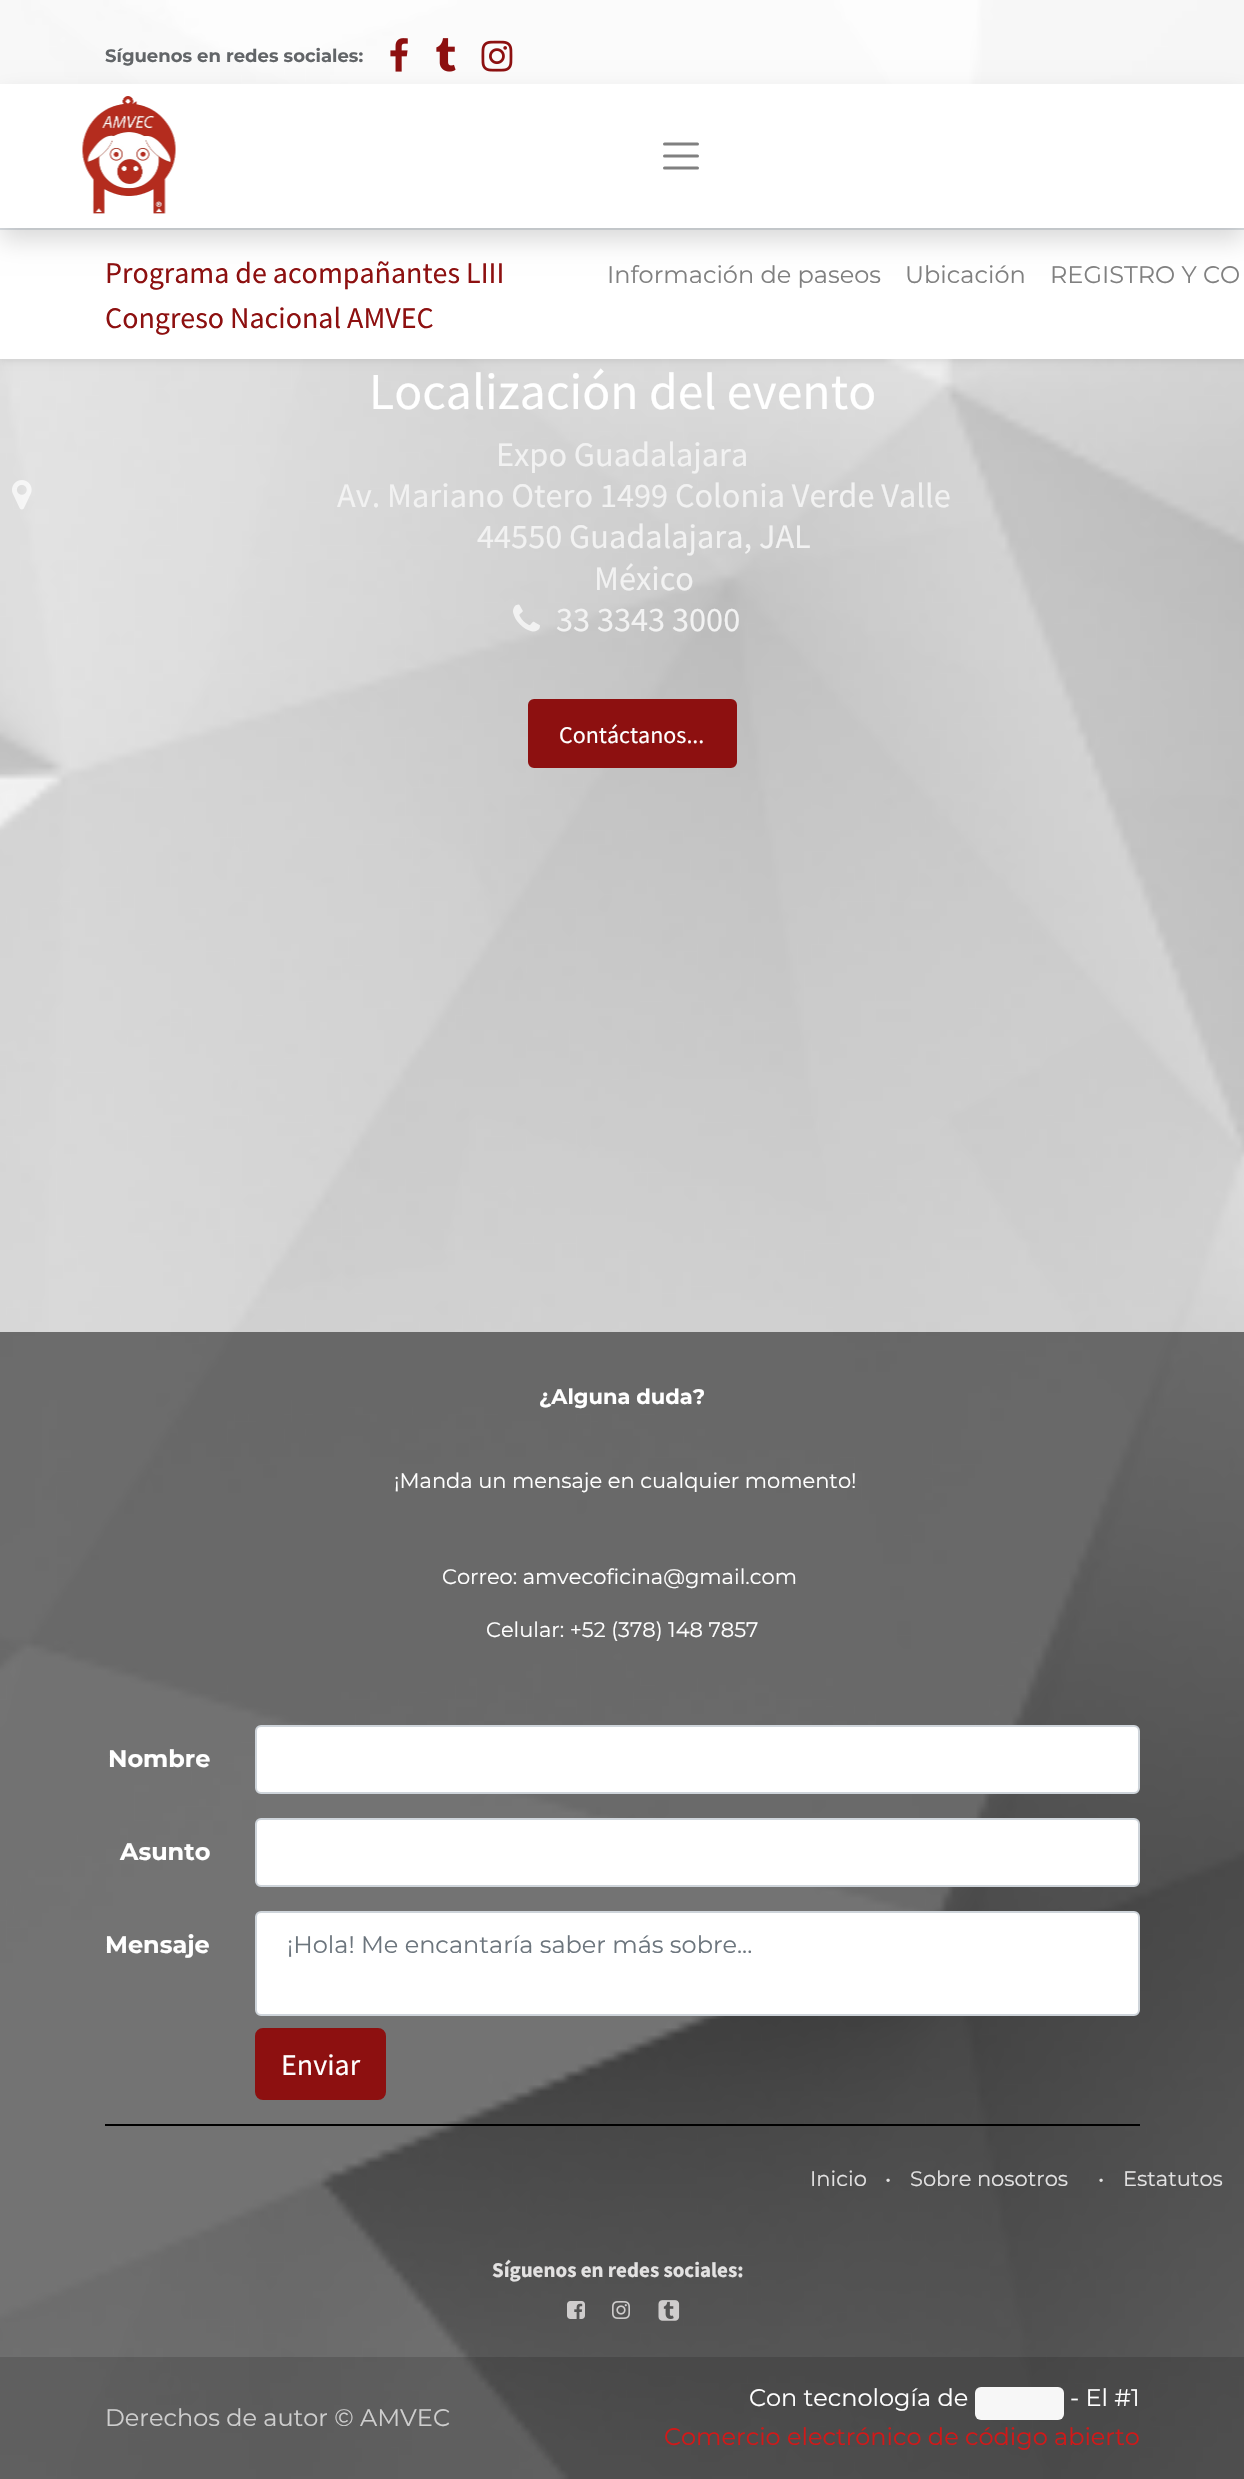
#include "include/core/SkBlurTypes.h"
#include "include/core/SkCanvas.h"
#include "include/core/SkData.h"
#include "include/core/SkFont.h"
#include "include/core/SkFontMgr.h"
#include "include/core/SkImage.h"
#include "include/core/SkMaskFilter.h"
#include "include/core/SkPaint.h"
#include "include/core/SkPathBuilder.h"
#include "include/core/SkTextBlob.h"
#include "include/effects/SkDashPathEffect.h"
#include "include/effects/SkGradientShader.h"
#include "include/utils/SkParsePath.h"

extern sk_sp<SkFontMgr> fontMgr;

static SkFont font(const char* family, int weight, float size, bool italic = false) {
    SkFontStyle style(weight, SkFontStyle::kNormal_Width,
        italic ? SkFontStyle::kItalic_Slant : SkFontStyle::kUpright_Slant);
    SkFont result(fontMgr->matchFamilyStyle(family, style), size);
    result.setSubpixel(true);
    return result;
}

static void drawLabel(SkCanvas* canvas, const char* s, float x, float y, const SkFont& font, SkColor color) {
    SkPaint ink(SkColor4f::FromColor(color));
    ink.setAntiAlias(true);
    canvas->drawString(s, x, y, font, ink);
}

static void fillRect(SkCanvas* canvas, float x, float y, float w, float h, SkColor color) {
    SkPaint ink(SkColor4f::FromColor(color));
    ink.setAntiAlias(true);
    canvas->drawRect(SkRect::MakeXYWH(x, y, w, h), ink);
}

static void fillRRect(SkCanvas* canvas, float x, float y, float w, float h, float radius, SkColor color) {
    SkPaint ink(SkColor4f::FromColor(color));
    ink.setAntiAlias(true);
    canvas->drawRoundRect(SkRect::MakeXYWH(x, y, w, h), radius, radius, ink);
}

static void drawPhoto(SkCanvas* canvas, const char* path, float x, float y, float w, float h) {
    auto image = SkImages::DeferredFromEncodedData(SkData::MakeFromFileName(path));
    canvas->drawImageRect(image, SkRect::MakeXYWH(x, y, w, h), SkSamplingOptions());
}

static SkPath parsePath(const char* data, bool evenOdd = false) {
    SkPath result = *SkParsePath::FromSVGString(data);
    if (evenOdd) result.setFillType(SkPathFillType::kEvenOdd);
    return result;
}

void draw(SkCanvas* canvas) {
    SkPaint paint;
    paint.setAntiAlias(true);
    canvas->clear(0xFFFFFFFF);
    drawPhoto(canvas, "assets/img1.png", 0, 0, 1244, 2479);
    fillRect(canvas, 0, 0, 1244, 84, 0xBFFFFFFF);
    SkFont font1 = font("Montserrat", 700, 18);
    drawLabel(canvas, "Síguenos en redes sociales:", 105, 62, font1, 0xFF626568);
    drawPhoto(canvas, "assets/img2.png", 390, 38, 18, 34);
    drawPhoto(canvas, "assets/img3.png", 436, 38, 20, 34);
    drawPhoto(canvas, "assets/img4.png", 481, 40, 32, 32);
    paint.setColor(0x12000000);
    paint.setMaskFilter(SkMaskFilter::MakeBlur(kNormal_SkBlurStyle, 3));
    canvas->drawRect(SkRect::MakeXYWH(0, 231, 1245, 131), paint);
    paint.setMaskFilter(nullptr);
    fillRect(canvas, 0, 230, 1244, 129, 0xFFFFFFFF);
    fillRect(canvas, 0, 228, 1244, 2, 0xFFDEE2E6);
    paint.setColor(0x26000000);
    paint.setMaskFilter(SkMaskFilter::MakeBlur(kNormal_SkBlurStyle, 12));
    canvas->drawRect(SkRect::MakeXYWH(0, 96, 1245, 144), paint);
    paint.setMaskFilter(nullptr);
    fillRect(canvas, 0, 84, 1244, 144, 0xFFFFFFFF);
    drawPhoto(canvas, "assets/img5.png", 82, 96, 94, 118);
    paint.setStroke(true);
    paint.setStrokeWidth(3);
    paint.setStrokeCap(SkPaint::kRound_Cap);
    paint.setColor(0xFF808080);
    canvas->drawPath(parsePath("M664.5 144H697.5M664.5 156H697.5M664.5 168H697.5"), paint);
    SkFont font2 = font("Source Sans Pro", 400, 30);
    drawLabel(canvas, "Programa de acompañantes LIII", 105, 283, font2, 0xFF8D1010);
    drawLabel(canvas, "Congreso Nacional AMVEC", 105, 328, font2, 0xFF8D1010);
    SkFont font3 = font("Montserrat", 400, 24);
    drawLabel(canvas, "Información de paseos", 607, 283, font3, 0xFF808080);
    drawLabel(canvas, "Ubicación", 905, 283, font3, 0xFF808080);
    drawLabel(canvas, "REGISTRO Y CO", 1050, 283, font3, 0xFF808080);
    SkFont font4 = font("Source Sans Pro", 400, 51.75f);
    drawLabel(canvas, "Localización del evento", 369, 409, font4, 0xFFFFFFFF);
    SkFont font5 = font("Source Sans Pro", 400, 34.3f);
    drawLabel(canvas, "Expo Guadalajara", 496, 466, font5, 0xFFF2F2F2);
    drawPhoto(canvas, "assets/img6.png", 12, 480, 20, 30);
    drawLabel(canvas, "Av. Mariano Otero 1499 Colonia Verde Valle", 337, 507, font5, 0xFFF2F2F2);
    drawLabel(canvas, "44550 Guadalajara, JAL", 477, 548, font5, 0xFFF2F2F2);
    drawLabel(canvas, "México", 594, 590, font5, 0xFFF2F2F2);
    drawPhoto(canvas, "assets/img7.png", 513, 604, 27, 28);
    drawLabel(canvas, "33 3343 3000", 556, 631, font5, 0xFFF2F2F2);
    paint.setStroke(false);
    paint.setColor(0xFF8D1010);
    canvas->drawRoundRect(SkRect::MakeXYWH(529, 700, 207, 67), 5, 5, paint);
    paint.setStroke(true);
    paint.setStrokeWidth(2);
    paint.setStrokeCap(SkPaint::kButt_Cap);
    canvas->drawRoundRect(SkRect::MakeXYWH(529, 700, 207, 67), 5, 5, paint);
    SkFont font6 = font("Source Sans Pro", 400, 24);
    drawLabel(canvas, "Contáctanos...", 559, 743, font6, 0xFFFFFFFF);
    fillRect(canvas, 0, 1332, 1244, 1147, 0x80000000);
    SkFont font7 = font("Montserrat", 700, 21);
    drawLabel(canvas, "¿Alguna duda?", 539, 1404, font7, 0xFFFFFFFF);
    SkFont font8 = font("Montserrat", 400, 21);
    drawLabel(canvas, "¡Manda un mensaje en cualquier momento!", 394, 1488, font8, 0xFFFFFFFF);
    drawLabel(canvas, "Correo: amvecoficina@gmail.com", 442, 1584, font8, 0xFFFFFFFF);
    drawLabel(canvas, "Celular: +52 (378) 148 7857", 486, 1637, font8, 0xFFFFFFFF);
    SkFont font9 = font("Montserrat", 700, 24);
    drawLabel(canvas, "Nombre", 108, 1767, font9, 0xFFFFFFFF);
    paint.setStroke(false);
    paint.setColor(0xFFFFFFFF);
    canvas->drawRoundRect(SkRect::MakeXYWH(256, 1726, 883, 67), 5, 5, paint);
    paint.setStroke(true);
    paint.setColor(0xFFCED4DA);
    canvas->drawRoundRect(SkRect::MakeXYWH(256, 1726, 883, 67), 5, 5, paint);
    drawLabel(canvas, "Asunto", 120, 1860, font9, 0xFFFFFFFF);
    paint.setStroke(false);
    paint.setColor(0xFFFFFFFF);
    canvas->drawRoundRect(SkRect::MakeXYWH(256, 1819, 883, 67), 5, 5, paint);
    paint.setStroke(true);
    paint.setColor(0xFFCED4DA);
    canvas->drawRoundRect(SkRect::MakeXYWH(256, 1819, 883, 67), 5, 5, paint);
    drawLabel(canvas, "Mensaje", 105, 1953, font9, 0xFFFFFFFF);
    paint.setStroke(false);
    paint.setColor(0xFFFFFFFF);
    canvas->drawRoundRect(SkRect::MakeXYWH(256, 1912, 883, 103), 5, 5, paint);
    paint.setStroke(true);
    paint.setColor(0xFFCED4DA);
    canvas->drawRoundRect(SkRect::MakeXYWH(256, 1912, 883, 103), 5, 5, paint);
    drawLabel(canvas, "¡Hola! Me encantaría saber más sobre...", 287, 1953, font3, 0xFF6C757D);
    paint.setStroke(false);
    paint.setColor(0xFF8D1010);
    canvas->drawRoundRect(SkRect::MakeXYWH(256, 2029, 129, 70), 7, 7, paint);
    paint.setStroke(true);
    canvas->drawRoundRect(SkRect::MakeXYWH(256, 2029, 129, 70), 7, 7, paint);
    drawLabel(canvas, "Enviar", 281, 2075, font2, 0xFFFFFFFF);
    fillRect(canvas, 105, 2124, 1035, 2, 0xFF000000);
    drawLabel(canvas, "Inicio", 810, 2186, font8, 0xFFE3E2E2);
    drawLabel(canvas, "•", 885, 2186, font8, 0xFFE3E2E2);
    drawLabel(canvas, "Sobre nosotros", 910, 2186, font8, 0xFFE3E2E2);
    drawLabel(canvas, "•", 1098, 2186, font8, 0xFFE3E2E2);
    drawLabel(canvas, "Estatutos", 1123, 2186, font8, 0xFFE3E2E2);
    SkFont font10 = font("Source Sans Pro", 700, 21);
    drawLabel(canvas, "Síguenos en redes sociales:", 492, 2277, font10, 0xFFE3E2E2);
    drawPhoto(canvas, "assets/img8.png", 567, 2301, 18, 18);
    drawPhoto(canvas, "assets/img9.png", 612, 2301, 18, 18);
    drawPhoto(canvas, "assets/img10.png", 658, 2300, 22, 21);
    fillRect(canvas, 0, 2357, 1244, 122, 0x26000000);
    drawLabel(canvas, "Derechos de autor © AMVEC", 105, 2426, font3, 0xFFCECECE);
    drawLabel(canvas, "Con tecnología de", 749, 2406, font3, 0xFFFFFFFF);
    fillRRect(canvas, 975, 2387, 89, 33, 6, 0xFFF7F7F7);
    drawLabel(canvas, "- El #1", 1070, 2406, font3, 0xFFFFFFFF);
    drawLabel(canvas, "Comercio electrónico de código abierto", 664, 2445, font3, 0xFFD21818);
}
